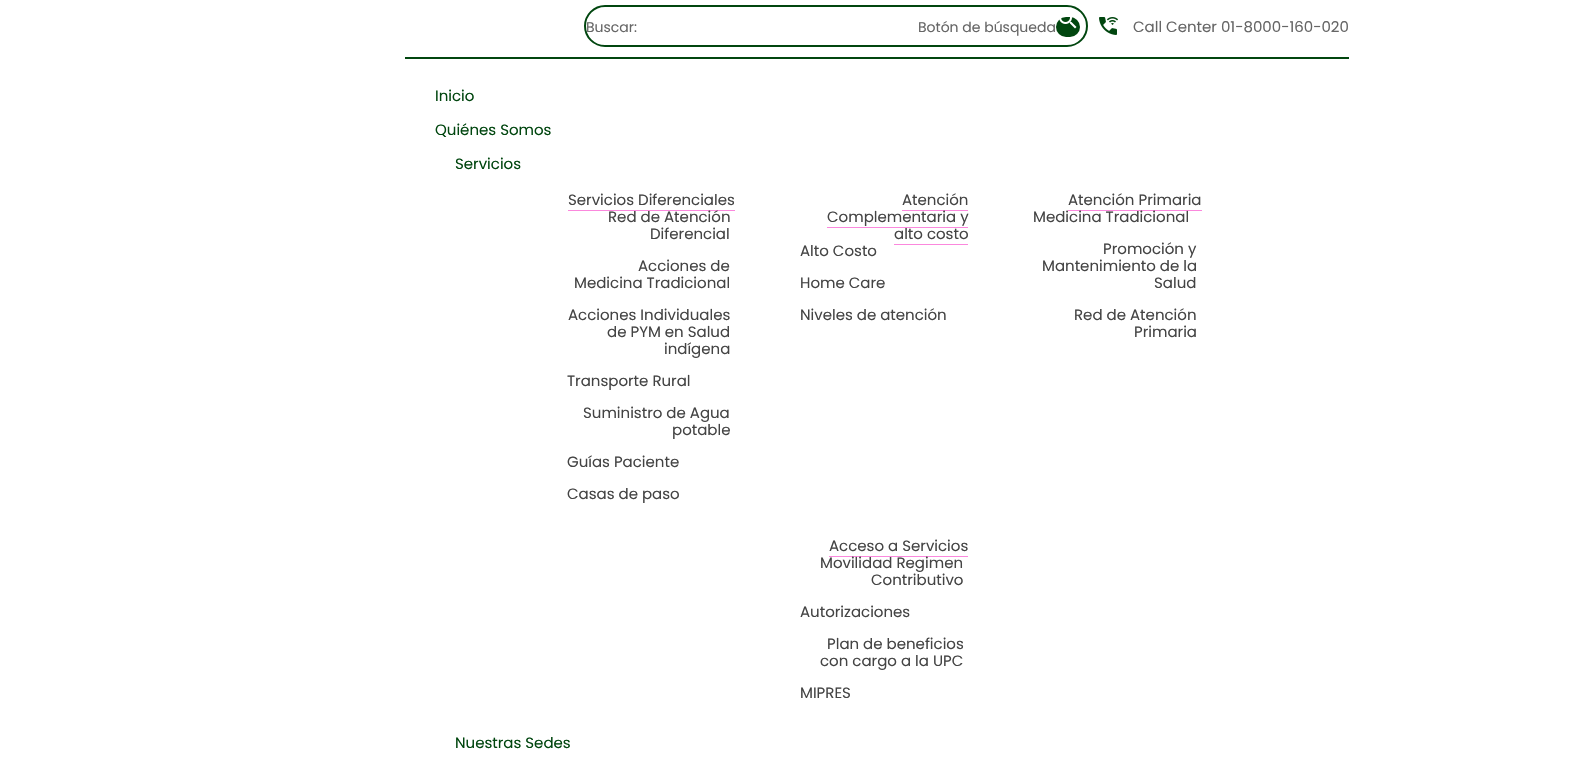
#include "include/core/SkBlurTypes.h"
#include "include/core/SkCanvas.h"
#include "include/core/SkData.h"
#include "include/core/SkFont.h"
#include "include/core/SkFontMgr.h"
#include "include/core/SkImage.h"
#include "include/core/SkMaskFilter.h"
#include "include/core/SkPaint.h"
#include "include/core/SkPathBuilder.h"
#include "include/core/SkTextBlob.h"
#include "include/effects/SkDashPathEffect.h"
#include "include/effects/SkGradientShader.h"
#include "include/utils/SkParsePath.h"

extern sk_sp<SkFontMgr> fontMgr;

static SkFont font(const char* family, int weight, float size, bool italic = false) {
    SkFontStyle style(weight, SkFontStyle::kNormal_Width,
        italic ? SkFontStyle::kItalic_Slant : SkFontStyle::kUpright_Slant);
    SkFont result(fontMgr->matchFamilyStyle(family, style), size);
    result.setSubpixel(true);
    return result;
}

static void drawLabel(SkCanvas* canvas, const char* s, float x, float y, const SkFont& font, SkColor color) {
    SkPaint ink(SkColor4f::FromColor(color));
    ink.setAntiAlias(true);
    canvas->drawString(s, x, y, font, ink);
}

static void fillRect(SkCanvas* canvas, float x, float y, float w, float h, SkColor color) {
    SkPaint ink(SkColor4f::FromColor(color));
    ink.setAntiAlias(true);
    canvas->drawRect(SkRect::MakeXYWH(x, y, w, h), ink);
}

static void fillRRect(SkCanvas* canvas, float x, float y, float w, float h, float radius, SkColor color) {
    SkPaint ink(SkColor4f::FromColor(color));
    ink.setAntiAlias(true);
    canvas->drawRoundRect(SkRect::MakeXYWH(x, y, w, h), radius, radius, ink);
}

static void drawPhoto(SkCanvas* canvas, const char* path, float x, float y, float w, float h) {
    auto image = SkImages::DeferredFromEncodedData(SkData::MakeFromFileName(path));
    canvas->drawImageRect(image, SkRect::MakeXYWH(x, y, w, h), SkSamplingOptions());
}

static SkPath parsePath(const char* data, bool evenOdd = false) {
    SkPath result = *SkParsePath::FromSVGString(data);
    if (evenOdd) result.setFillType(SkPathFillType::kEvenOdd);
    return result;
}

void draw(SkCanvas* canvas) {
    SkPaint paint;
    paint.setAntiAlias(true);
    canvas->clear(0xFFFFFFFF);
    fillRect(canvas, 405, 57, 944, 2, 0xFF01460F);
    paint.setStroke(true);
    paint.setStrokeWidth(2);
    paint.setColor(0xFF01460F);
    canvas->drawRoundRect(SkRect::MakeXYWH(585, 6, 502, 40), 20, 20, paint);
    canvas->save();
    canvas->clipPath(parsePath("M605 7H1067C1077.5 7 1086 15.5 1086 26C1086 36.5 1077.5 45 1067 45H605C594.5 45 586 36.5 586 26C586 15.5 594.5 7 605 7Z"), true);
    SkFont font1 = font("Poppins", 400, 14);
    drawLabel(canvas, "Buscar:", 586, 32, font1, 0xFF666666);
    canvas->restore();
    fillRRect(canvas, 1056, 17, 24, 20, 10, 0xFF01460F);
    drawLabel(canvas, "Botón de búsqueda", 918, 32, font1, 0xFF666666);
    drawPhoto(canvas, "assets/img1.png", 1059, 17, 18, 12);
    drawPhoto(canvas, "assets/img2.png", 1099, 17, 19, 18);
    SkFont font2 = font("Poppins", 400, 15);
    drawLabel(canvas, "Call Center 01-8000-160-020", 1133, 32, font2, 0xFF666666);
    drawLabel(canvas, "Inicio", 435, 101, font2, 0xFF01460F);
    drawLabel(canvas, "Quiénes Somos", 435, 135, font2, 0xFF01460F);
    drawLabel(canvas, "Servicios", 455, 169, font2, 0xFF01460F);
    drawLabel(canvas, "Servicios Diferenciales", 568, 205, font2, 0xFF444444);
    fillRect(canvas, 568, 210, 167, 1, 0xFFFB88DD);
    drawLabel(canvas, "Red de Atención", 608, 222, font2, 0xFF444444);
    drawLabel(canvas, "Diferencial", 650, 239, font2, 0xFF444444);
    drawLabel(canvas, "Acciones de", 638, 271, font2, 0xFF444444);
    drawLabel(canvas, "Medicina Tradicional", 574, 288, font2, 0xFF444444);
    drawLabel(canvas, "Acciones Individuales", 568, 320, font2, 0xFF444444);
    drawLabel(canvas, "de PYM en Salud", 607, 337, font2, 0xFF444444);
    drawLabel(canvas, "indígena", 664, 354, font2, 0xFF444444);
    drawLabel(canvas, "Transporte Rural", 567, 386, font2, 0xFF444444);
    drawLabel(canvas, "Suministro de Agua", 583, 418, font2, 0xFF444444);
    drawLabel(canvas, "potable", 672, 435, font2, 0xFF444444);
    drawLabel(canvas, "Guías Paciente", 567, 467, font2, 0xFF444444);
    drawLabel(canvas, "Casas de paso", 567, 499, font2, 0xFF444444);
    drawLabel(canvas, "Atención", 902, 205, font2, 0xFF444444);
    fillRect(canvas, 902, 210, 66, 1, 0xFFFB88DD);
    drawLabel(canvas, "Complementaria y", 827, 222, font2, 0xFF444444);
    fillRect(canvas, 827, 227, 141, 1, 0xFFFB88DD);
    drawLabel(canvas, "alto costo", 894, 239, font2, 0xFF444444);
    fillRect(canvas, 894, 244, 74, 1, 0xFFFB88DD);
    drawLabel(canvas, "Alto Costo", 800, 256, font2, 0xFF444444);
    drawLabel(canvas, "Home Care", 800, 288, font2, 0xFF444444);
    drawLabel(canvas, "Niveles de atención", 800, 320, font2, 0xFF444444);
    drawLabel(canvas, "Atención Primaria", 1068, 205, font2, 0xFF444444);
    fillRect(canvas, 1068, 210, 134, 1, 0xFFFB88DD);
    drawLabel(canvas, "Medicina Tradicional", 1033, 222, font2, 0xFF444444);
    drawLabel(canvas, "Promoción y", 1103, 254, font2, 0xFF444444);
    drawLabel(canvas, "Mantenimiento de la", 1042, 271, font2, 0xFF444444);
    drawLabel(canvas, "Salud", 1154, 288, font2, 0xFF444444);
    drawLabel(canvas, "Red de Atención", 1074, 320, font2, 0xFF444444);
    drawLabel(canvas, "Primaria", 1134, 337, font2, 0xFF444444);
    drawLabel(canvas, "Acceso a Servicios", 829, 551, font2, 0xFF444444);
    fillRect(canvas, 829, 556, 139, 1, 0xFFFB88DD);
    drawLabel(canvas, "Movilidad Regimen", 820, 568, font2, 0xFF444444);
    drawLabel(canvas, "Contributivo", 871, 585, font2, 0xFF444444);
    drawLabel(canvas, "Autorizaciones", 800, 617, font2, 0xFF444444);
    drawLabel(canvas, "Plan de beneficios", 827, 649, font2, 0xFF444444);
    drawLabel(canvas, "con cargo a la UPC", 820, 666, font2, 0xFF444444);
    drawLabel(canvas, "MIPRES", 800, 698, font2, 0xFF444444);
    drawLabel(canvas, "Nuestras Sedes", 455, 748, font2, 0xFF01460F);
}
